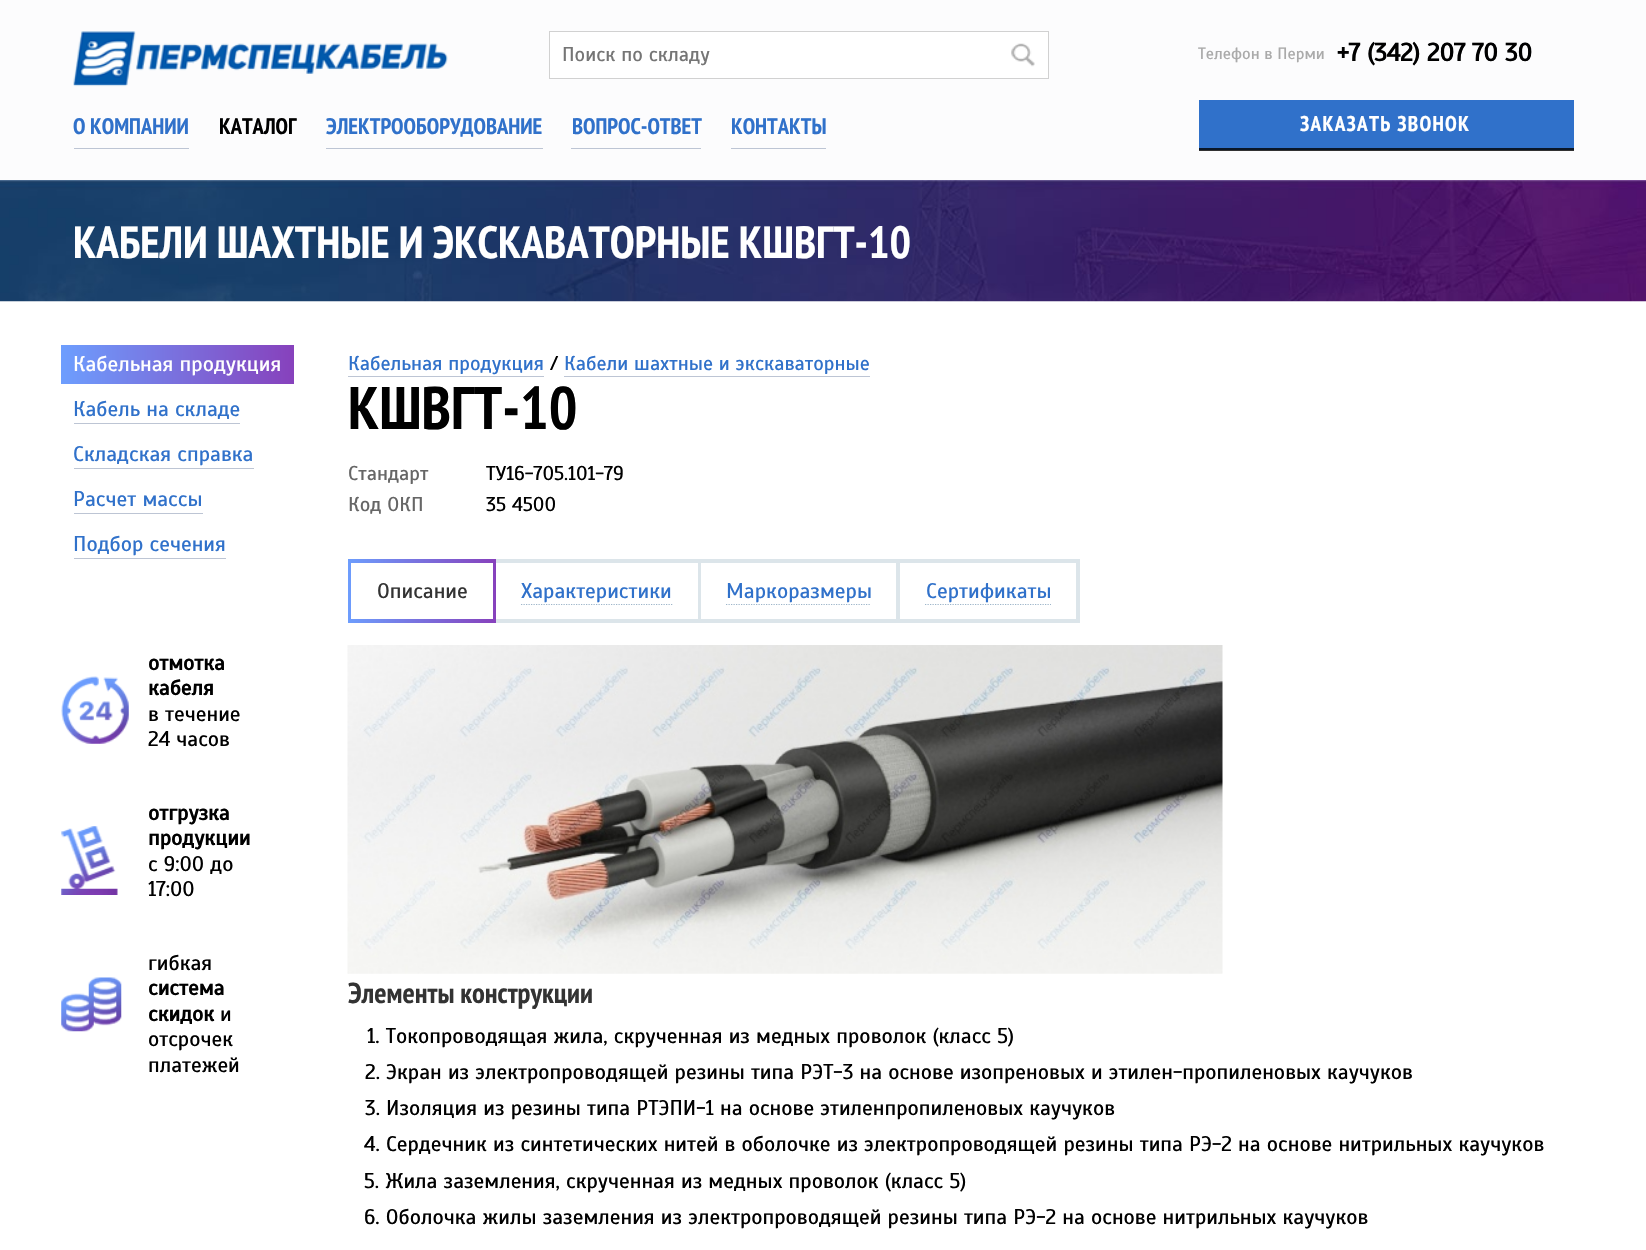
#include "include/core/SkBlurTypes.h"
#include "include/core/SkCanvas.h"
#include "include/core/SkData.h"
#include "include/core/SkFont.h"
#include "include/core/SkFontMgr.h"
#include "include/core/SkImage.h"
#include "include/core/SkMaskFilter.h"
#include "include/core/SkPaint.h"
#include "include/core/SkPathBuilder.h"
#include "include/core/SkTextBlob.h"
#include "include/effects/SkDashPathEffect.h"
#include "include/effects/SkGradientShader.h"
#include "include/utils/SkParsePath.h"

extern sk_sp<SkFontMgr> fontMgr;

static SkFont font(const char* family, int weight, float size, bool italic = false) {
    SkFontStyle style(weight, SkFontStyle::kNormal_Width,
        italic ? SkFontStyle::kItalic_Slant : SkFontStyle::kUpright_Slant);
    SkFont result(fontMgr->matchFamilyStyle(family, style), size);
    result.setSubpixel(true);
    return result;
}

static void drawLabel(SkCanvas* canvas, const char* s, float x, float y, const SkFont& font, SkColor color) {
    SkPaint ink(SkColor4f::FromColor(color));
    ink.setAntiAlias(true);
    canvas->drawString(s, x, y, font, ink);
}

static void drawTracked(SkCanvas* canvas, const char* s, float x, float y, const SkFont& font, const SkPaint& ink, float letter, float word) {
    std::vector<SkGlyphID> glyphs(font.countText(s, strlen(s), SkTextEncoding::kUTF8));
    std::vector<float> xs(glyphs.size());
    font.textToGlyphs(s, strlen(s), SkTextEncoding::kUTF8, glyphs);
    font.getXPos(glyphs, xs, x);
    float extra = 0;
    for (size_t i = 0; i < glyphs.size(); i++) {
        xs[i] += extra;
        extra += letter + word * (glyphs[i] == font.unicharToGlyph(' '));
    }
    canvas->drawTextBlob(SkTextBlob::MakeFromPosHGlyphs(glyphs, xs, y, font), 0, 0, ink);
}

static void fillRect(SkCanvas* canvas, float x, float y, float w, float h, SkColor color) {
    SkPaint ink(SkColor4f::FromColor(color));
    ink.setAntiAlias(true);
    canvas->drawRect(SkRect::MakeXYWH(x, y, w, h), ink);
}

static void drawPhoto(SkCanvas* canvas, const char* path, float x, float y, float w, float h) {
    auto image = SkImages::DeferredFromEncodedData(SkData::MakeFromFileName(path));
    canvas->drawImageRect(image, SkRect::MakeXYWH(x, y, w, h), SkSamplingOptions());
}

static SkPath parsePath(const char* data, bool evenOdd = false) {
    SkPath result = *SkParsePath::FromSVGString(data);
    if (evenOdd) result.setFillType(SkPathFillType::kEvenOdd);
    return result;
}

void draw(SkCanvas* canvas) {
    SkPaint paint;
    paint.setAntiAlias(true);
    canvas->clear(0xFFFFFFFF);
    fillRect(canvas, 0, 0, 1646, 180, 0xFFFCFCFD);
    fillRect(canvas, 1199, 150, 375, 1, 0xFF323233);
    drawPhoto(canvas, "assets/img1.png", 73, 31, 375, 56);
    paint.setColor(0xFFFFFFFF);
    canvas->drawRect(SkRect::MakeXYWH(549.5f, 31.5f, 499, 47), paint);
    paint.setStroke(true);
    paint.setStrokeWidth(1);
    paint.setColor(0xFFD1D1D1);
    canvas->drawRect(SkRect::MakeXYWH(549.5f, 31.5f, 499, 47), paint);
    SkFont font1 = font("Scada", 400, 20);
    drawLabel(canvas, "Поиск по складу", 562, 61, font1, 0xFF757575);
    drawPhoto(canvas, "assets/img2.png", 1011, 43, 24, 24);
    fillRect(canvas, 74, 148, 115, 1, 0xFFBDC5D4);
    SkFont font2 = font("PT Sans Narrow", 700, 22.5f);
    drawLabel(canvas, "О КОМПАНИИ", 73, 134, font2, 0xFF3071CA);
    drawLabel(canvas, "КАТАЛОГ", 219, 134, font2, 0xFF000000);
    fillRect(canvas, 326, 148, 217, 1, 0xFFBDC5D4);
    drawLabel(canvas, "ЭЛЕКТРООБОРУДОВАНИЕ", 326, 134, font2, 0xFF3071CA);
    fillRect(canvas, 571, 148, 130, 1, 0xFFBDC5D4);
    drawLabel(canvas, "ВОПРОС-ОТВЕТ", 572, 134, font2, 0xFF3071CA);
    fillRect(canvas, 731, 148, 95, 1, 0xFFBDC5D4);
    drawLabel(canvas, "КОНТАКТЫ", 731, 134, font2, 0xFF3071CA);
    SkFont font3 = font("Scada", 400, 16.25f);
    drawLabel(canvas, "Телефон в Перми", 1198, 59, font3, 0xFFAAAAAA);
    SkFont font4 = font("Scada", 700, 25);
    drawLabel(canvas, "+7 (342) 207 70 30", 1337, 61, font4, 0xFF000000);
    fillRect(canvas, 1199, 100, 375, 48, 0xFF3071CA);
    fillRect(canvas, 1199, 148, 375, 2, 0xFF0A1728);
    SkFont font5 = font("PT Sans Narrow", 700, 21.25f);
    paint.setStroke(false);
    paint.setColor(0xFFFFFFFF);
    drawTracked(canvas, "ЗАКАЗАТЬ ЗВОНОК", 1300, 131, font5, paint, 1.25f, 0);
    drawPhoto(canvas, "assets/img3.png", 0, 180, 1646, 122);
    SkFont font6 = font("PT Sans Narrow", 700, 45);
    drawLabel(canvas, "КАБЕЛИ ШАХТНЫЕ И ЭКСКАВАТОРНЫЕ КШВГТ-10", 73, 258, font6, 0xFFFFFFFF);
    {
        const SkColor colors[] = {0xFF6D9EFE, 0xFF8741BC};
        const float stops[] = {0, 1};
        const SkPoint ends[] = {{61, 364}, {294, 364}};
        paint.setShader(SkGradientShader::MakeLinear(ends, colors, stops, 2, SkTileMode::kClamp));
        paint.setAlpha(255);
    }
    canvas->drawRect(SkRect::MakeXYWH(61, 345, 233, 39), paint);
    SkFont font7 = font("Scada", 400, 21.25f);
    drawLabel(canvas, "Кабельная продукция", 73, 371, font7, 0xFFFFFFFF);
    drawLabel(canvas, "Кабель на складе", 73, 416, font7, 0xFF3071CA);
    fillRect(canvas, 74, 423, 166, 1, 0xFFBDC5D4);
    drawLabel(canvas, "Складская справка", 73, 461, font7, 0xFF3071CA);
    fillRect(canvas, 74, 468, 180, 1, 0xFFBDC5D4);
    drawLabel(canvas, "Расчет массы", 73, 506, font7, 0xFF3071CA);
    fillRect(canvas, 74, 513, 129, 1, 0xFFBDC5D4);
    drawLabel(canvas, "Подбор сечения", 73, 551, font7, 0xFF3071CA);
    fillRect(canvas, 74, 558, 152, 1, 0xFFBDC5D4);
    SkFont font8 = font("Scada", 700, 21.25f);
    drawLabel(canvas, "отмотка", 148, 670, font8, 0xFF000000);
    drawPhoto(canvas, "assets/img4.png", 61, 676, 68, 68);
    drawLabel(canvas, "кабеля", 148, 695, font8, 0xFF000000);
    drawLabel(canvas, "в течение", 148, 721, font7, 0xFF000000);
    drawLabel(canvas, "24 часов", 148, 746, font7, 0xFF000000);
    drawLabel(canvas, "отгрузка", 148, 820, font8, 0xFF000000);
    drawPhoto(canvas, "assets/img5.png", 61, 826, 57, 69);
    drawLabel(canvas, "продукции", 148, 845, font8, 0xFF000000);
    drawLabel(canvas, "с 9:00 до", 148, 871, font7, 0xFF000000);
    drawLabel(canvas, "17:00", 148, 896, font7, 0xFF000000);
    drawLabel(canvas, "гибкая", 148, 970, font7, 0xFF000000);
    drawPhoto(canvas, "assets/img6.png", 61, 977, 61, 55);
    drawLabel(canvas, "система", 148, 995, font8, 0xFF000000);
    drawLabel(canvas, "скидок", 148, 1021, font8, 0xFF000000);
    drawLabel(canvas, "и", 220, 1021, font7, 0xFF000000);
    drawLabel(canvas, "отсрочек", 148, 1046, font7, 0xFF000000);
    drawLabel(canvas, "платежей", 148, 1072, font7, 0xFF000000);
    drawLabel(canvas, "Кабельная продукция", 348, 370, font1, 0xFF3071CA);
    fillRect(canvas, 348, 376, 196, 1, 0xFFBDC5D4);
    drawLabel(canvas, "/", 550, 370, font1, 0xFF000000);
    drawLabel(canvas, "Кабели шахтные и экскаваторные", 564, 370, font1, 0xFF3071CA);
    fillRect(canvas, 564, 376, 306, 1, 0xFFBDC5D4);
    SkFont font9 = font("PT Sans Narrow", 700, 60);
    drawLabel(canvas, "КШВГТ-10", 348, 429, font9, 0xFF000000);
    drawLabel(canvas, "Стандарт", 348, 480, font1, 0xFF666666);
    drawLabel(canvas, "ТУ16-705.101-79", 486, 480, font1, 0xFF000000);
    drawLabel(canvas, "Код ОКП", 348, 511, font1, 0xFF666666);
    drawLabel(canvas, "35 4500", 486, 511, font1, 0xFF000000);
    {
        const SkColor colors[] = {0xFF6D9DFD, 0xFF8741BC};
        const float stops[] = {0, 1};
        const SkPoint ends[] = {{348, 591}, {496, 591}};
        paint.setShader(SkGradientShader::MakeLinear(ends, colors, stops, 2, SkTileMode::kClamp));
        paint.setAlpha(255);
    }
    canvas->drawRect(SkRect::MakeXYWH(348, 559, 148, 64), paint);
    fillRect(canvas, 351, 563, 142, 56, 0xFFFFFFFF);
    drawLabel(canvas, "Описание", 377, 598, font7, 0xFF333333);
    fillRect(canvas, 496, 559, 584, 64, 0xFFDCE5EA);
    fillRect(canvas, 496, 563, 202, 56, 0xFFFFFFFF);
    drawLabel(canvas, "Характеристики", 521, 598, font7, 0xFF3071CA);
    paint.setStroke(true);
    paint.setStrokeWidth(1.2f);
    paint.setShader(nullptr);
    paint.setColor(0xFF9DB5C9);
    paint.setPathEffect(SkDashPathEffect::Make({{1.25f, 1.25f}}, 0));
    canvas->drawPath(parsePath("M521 604.5H672.5"), paint);
    paint.setPathEffect(nullptr);
    fillRect(canvas, 701, 563, 195, 56, 0xFFFFFFFF);
    drawLabel(canvas, "Маркоразмеры", 726, 598, font7, 0xFF3071CA);
    paint.setPathEffect(SkDashPathEffect::Make({{1.25f, 1.25f}}, 0));
    canvas->drawPath(parsePath("M726 604.5H871"), paint);
    paint.setPathEffect(nullptr);
    fillRect(canvas, 900, 563, 176, 56, 0xFFFFFFFF);
    drawLabel(canvas, "Сертификаты", 926, 598, font7, 0xFF3071CA);
    paint.setPathEffect(SkDashPathEffect::Make({{1.25f, 1.25f}}, 0));
    canvas->drawPath(parsePath("M925 604.5H1051"), paint);
    paint.setPathEffect(nullptr);
    drawPhoto(canvas, "assets/img7.png", 347, 645, 876, 329);
    SkFont font10 = font("PT Sans Narrow", 700, 28.75f);
    drawLabel(canvas, "Элементы конструкции", 348, 1003, font10, 0xFF333333);
    drawLabel(canvas, "1. Токопроводящая жила, скрученная из медных проволок (класс 5)", 367, 1043, font7, 0xFF000000);
    drawLabel(canvas, "2. Экран из электропроводящей резины типа РЭТ-3 на основе изопреновых и этилен-пропиленовых каучуков", 365, 1079, font7, 0xFF000000);
    drawLabel(canvas, "3. Изоляция из резины типа РТЭПИ-1 на основе этиленпропиленовых каучуков", 365, 1115, font7, 0xFF000000);
    drawLabel(canvas, "4. Сердечник из синтетических нитей в оболочке из электропроводящей резины типа РЭ-2 на основе нитрильных каучуков", 364, 1151, font7, 0xFF000000);
    drawLabel(canvas, "5. Жила заземления, скрученная из медных проволок (класс 5)", 364, 1188, font7, 0xFF000000);
    drawLabel(canvas, "6. Оболочка жилы заземления из электропроводящей резины типа РЭ-2 на основе нитрильных каучуков", 364, 1224, font7, 0xFF000000);
}
